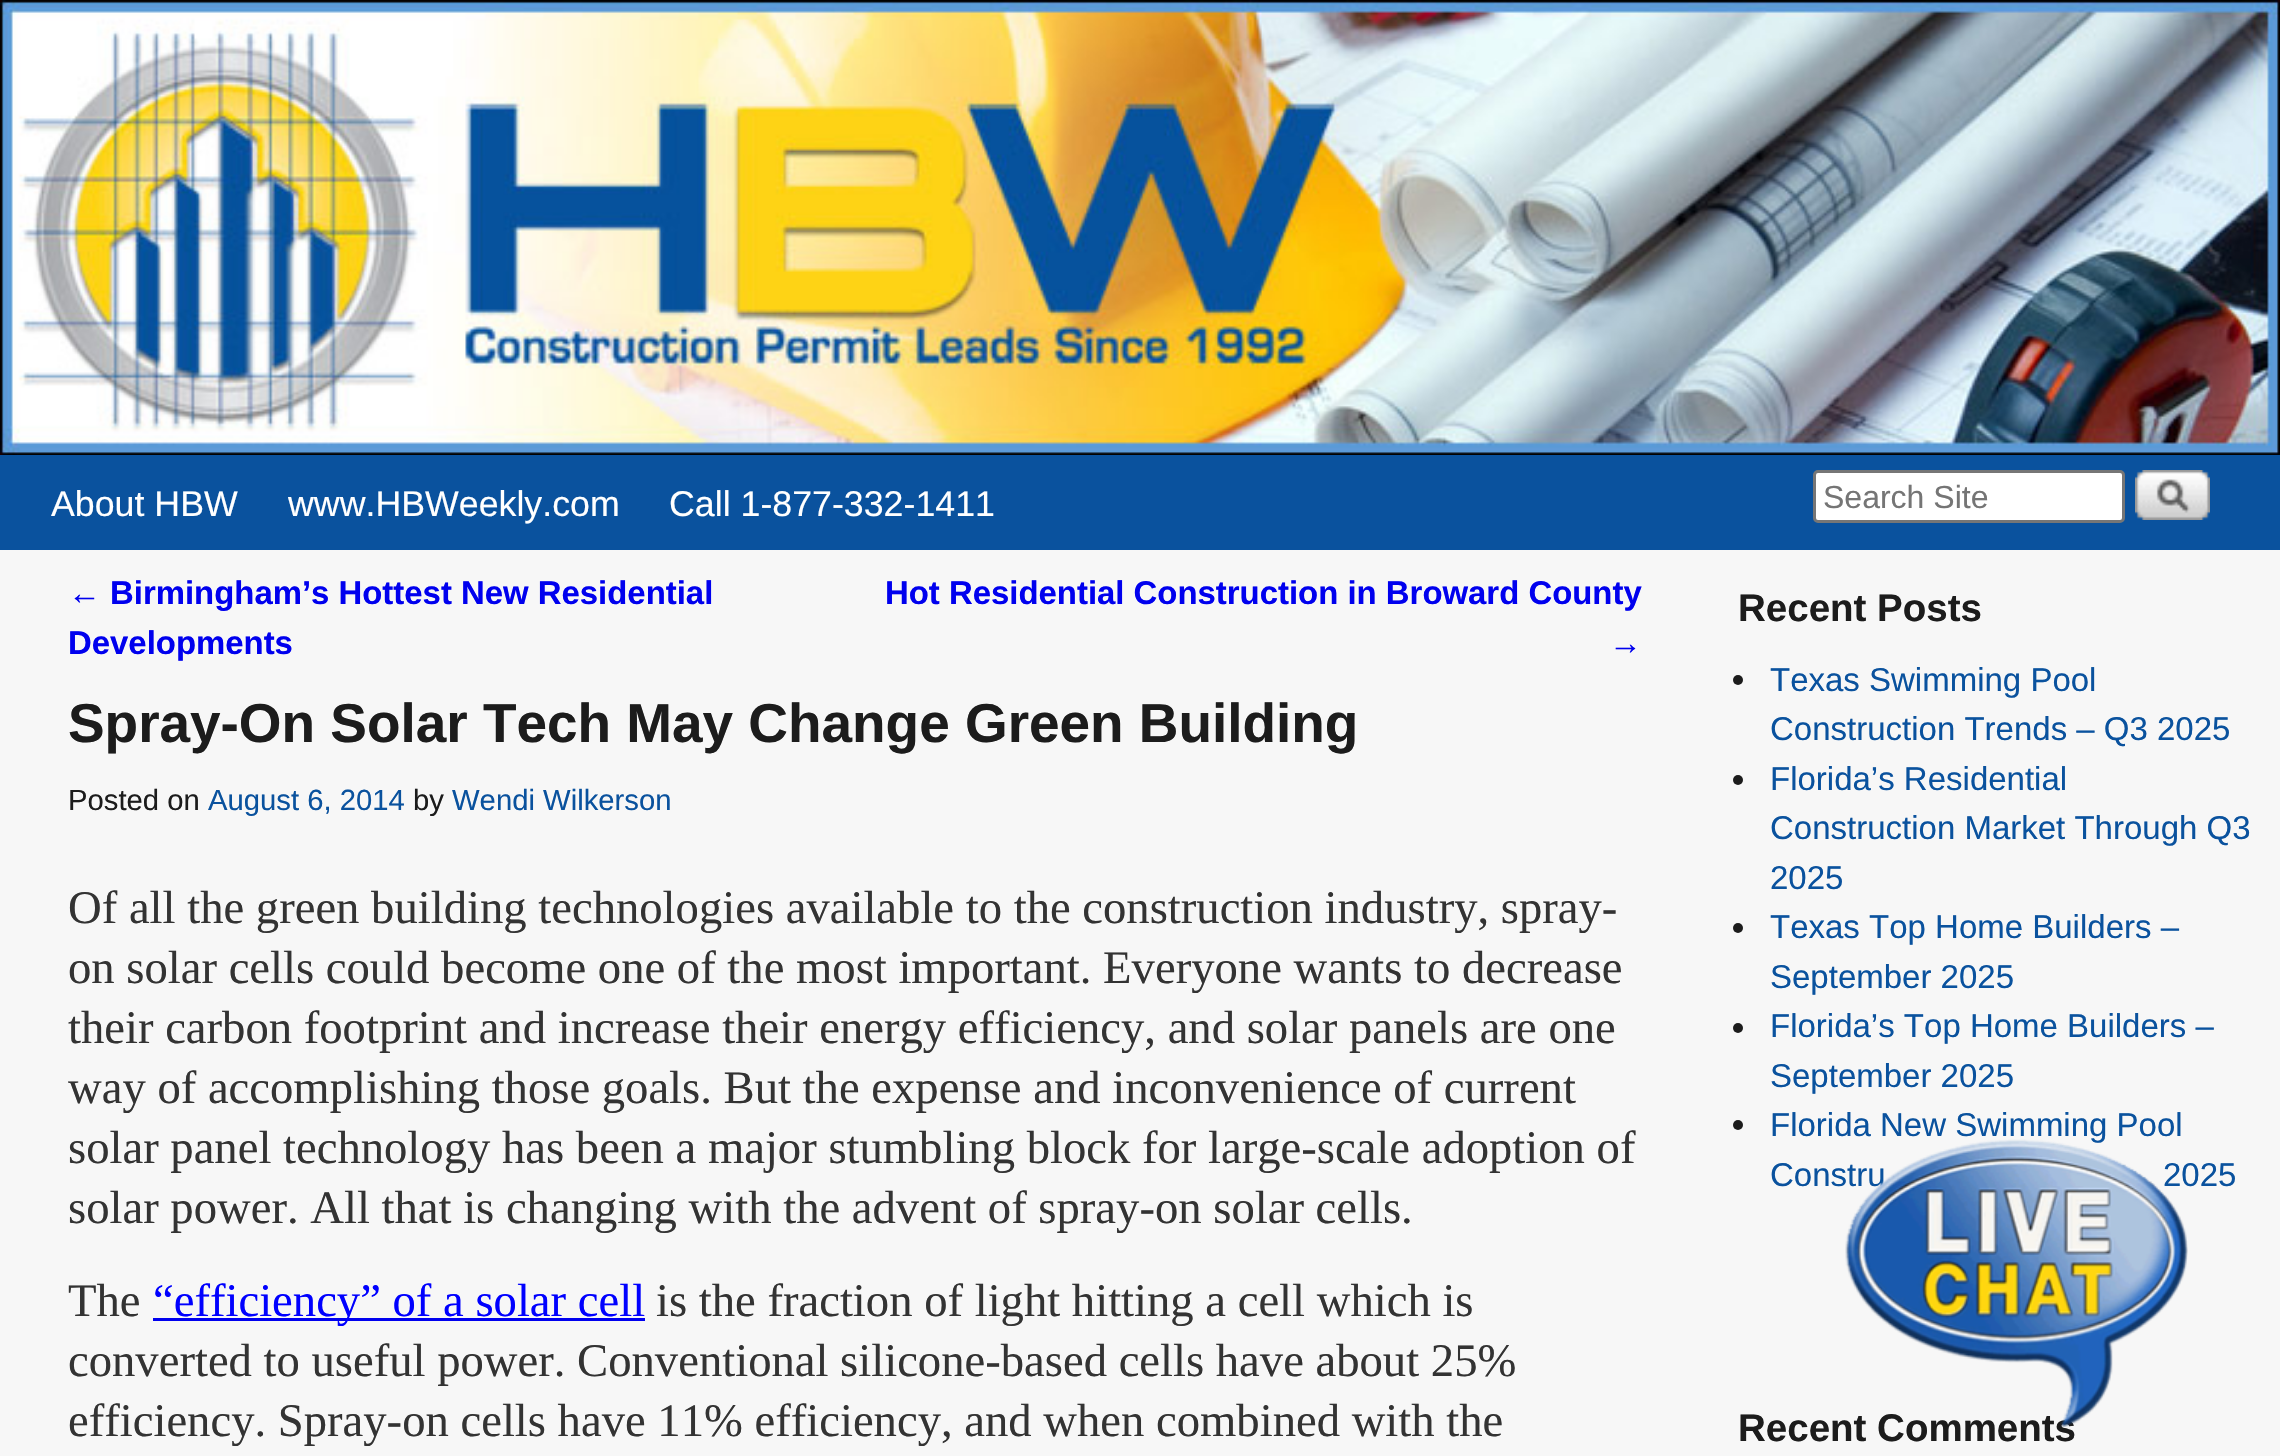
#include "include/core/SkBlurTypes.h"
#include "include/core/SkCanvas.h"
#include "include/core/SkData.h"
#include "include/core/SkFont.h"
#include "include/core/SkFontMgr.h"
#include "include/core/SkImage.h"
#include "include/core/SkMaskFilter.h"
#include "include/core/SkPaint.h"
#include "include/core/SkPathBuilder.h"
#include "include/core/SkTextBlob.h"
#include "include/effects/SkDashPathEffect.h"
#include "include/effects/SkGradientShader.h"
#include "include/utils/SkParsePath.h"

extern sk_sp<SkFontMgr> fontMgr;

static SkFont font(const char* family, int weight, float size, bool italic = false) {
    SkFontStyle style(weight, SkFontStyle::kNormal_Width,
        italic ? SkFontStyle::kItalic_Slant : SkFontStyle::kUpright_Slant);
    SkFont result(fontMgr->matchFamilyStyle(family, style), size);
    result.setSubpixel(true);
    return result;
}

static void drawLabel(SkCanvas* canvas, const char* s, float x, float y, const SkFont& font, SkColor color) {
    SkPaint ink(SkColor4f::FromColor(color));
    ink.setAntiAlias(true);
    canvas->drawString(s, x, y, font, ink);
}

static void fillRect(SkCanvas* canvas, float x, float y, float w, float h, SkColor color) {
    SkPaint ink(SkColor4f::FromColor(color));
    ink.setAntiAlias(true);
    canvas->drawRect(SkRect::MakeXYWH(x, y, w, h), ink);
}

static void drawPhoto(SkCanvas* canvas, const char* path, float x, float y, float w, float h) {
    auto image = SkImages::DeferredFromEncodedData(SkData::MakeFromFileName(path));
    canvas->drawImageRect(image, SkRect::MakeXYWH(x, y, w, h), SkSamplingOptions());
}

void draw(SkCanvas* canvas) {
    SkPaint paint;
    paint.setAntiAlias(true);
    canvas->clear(0xFF0A529E);
    drawPhoto(canvas, "assets/img1.png", 0, 0, 2280, 455);
    SkFont font1 = font("Liberation Sans", 400, 35.75f);
    drawLabel(canvas, "About HBW", 51, 516, font1, 0xFFFFFFFF);
    drawLabel(canvas, "www.HBWeekly.com", 288, 516, font1, 0xFFFFFFFF);
    drawLabel(canvas, "Call 1-877-332-1411", 669, 516, font1, 0xFFFFFFFF);
    paint.setColor(0xFFFFFFFF);
    canvas->drawRoundRect(SkRect::MakeXYWH(1814.5f, 471.5f, 309, 50), 3.5f, 3.5f, paint);
    paint.setStroke(true);
    paint.setStrokeWidth(3);
    paint.setColor(0xFF767676);
    canvas->drawRoundRect(SkRect::MakeXYWH(1814.5f, 471.5f, 309, 50), 3.5f, 3.5f, paint);
    SkFont font2 = font("Liberation Sans", 400, 32);
    drawLabel(canvas, "Search Site", 1823, 508, font2, 0xFF757575);
    drawPhoto(canvas, "assets/img2.png", 2135, 470, 75, 50);
    fillRect(canvas, 0, 550, 2280, 906, 0xFFF7F7F7);
    SkFont font3 = font("Liberation Sans", 400, 32.9f);
    drawLabel(canvas, "←", 68, 604, font3, 0xFF0000EE);
    SkFont font4 = font("Liberation Sans", 700, 32.9f);
    drawLabel(canvas, "Birmingham’s Hottest New Residential", 110, 604, font4, 0xFF0000EE);
    drawLabel(canvas, "Developments", 68, 654, font4, 0xFF0000EE);
    drawLabel(canvas, "Hot Residential Construction in Broward County", 885, 604, font4, 0xFF0000EE);
    drawLabel(canvas, "→", 1609, 654, font3, 0xFF0000EE);
    SkFont font5 = font("Liberation Sans", 700, 54.9f);
    drawLabel(canvas, "Spray-On Solar Tech May Change Green Building", 68, 742, font5, 0xFF1C1C1C);
    SkFont font6 = font("Liberation Sans", 400, 29.25f);
    drawLabel(canvas, "Posted on", 68, 810, font6, 0xFF1C1C1C);
    drawLabel(canvas, "August 6, 2014", 208, 810, font6, 0xFF0A529E);
    drawLabel(canvas, "by", 413, 810, font6, 0xFF1C1C1C);
    drawLabel(canvas, "Wendi Wilkerson", 452, 810, font6, 0xFF0A529E);
    SkFont font7 = font("Liberation Serif", 400, 46.65f);
    drawLabel(canvas, "Of all the green building technologies available to the construction industry, spray-", 68, 923, font7, 0xFF333333);
    drawLabel(canvas, "on solar cells could become one of the most important. Everyone wants to decrease", 68, 983, font7, 0xFF333333);
    drawLabel(canvas, "their carbon footprint and increase their energy efficiency, and solar panels are one", 68, 1043, font7, 0xFF333333);
    drawLabel(canvas, "way of accomplishing those goals. But the expense and inconvenience of current", 68, 1103, font7, 0xFF333333);
    drawLabel(canvas, "solar panel technology has been a major stumbling block for large-scale adoption of", 68, 1163, font7, 0xFF333333);
    drawLabel(canvas, "solar power. All that is changing with the advent of spray-on solar cells.", 68, 1223, font7, 0xFF333333);
    drawLabel(canvas, "The", 68, 1316, font7, 0xFF333333);
    fillRect(canvas, 153, 1318, 492, 3, 0xFF0000EE);
    drawLabel(canvas, "“efficiency” of a solar cell", 153, 1316, font7, 0xFF0000FF);
    drawLabel(canvas, "is the fraction of light hitting a cell which is", 656, 1316, font7, 0xFF333333);
    drawLabel(canvas, "converted to useful power. Conventional silicone-based cells have about 25%", 68, 1376, font7, 0xFF333333);
    drawLabel(canvas, "efficiency. Spray-on cells have 11% efficiency, and when combined with the", 68, 1436, font7, 0xFF333333);
    SkFont font8 = font("Liberation Sans", 700, 38.5f);
    drawLabel(canvas, "Recent Posts", 1738, 621, font8, 0xFF1C1C1C);
    paint.setStroke(false);
    paint.setColor(0xFF1C1C1C);
    canvas->drawCircle(1738, 680, 5, paint);
    SkFont font9 = font("Liberation Sans", 400, 33);
    drawLabel(canvas, "Texas Swimming Pool", 1770, 691, font9, 0xFF0A529E);
    drawLabel(canvas, "Construction Trends – Q3 2025", 1770, 740, font9, 0xFF0A529E);
    canvas->drawCircle(1738, 780, 5, paint);
    drawLabel(canvas, "Florida’s Residential", 1770, 790, font9, 0xFF0A529E);
    drawLabel(canvas, "Construction Market Through Q3", 1770, 839, font9, 0xFF0A529E);
    drawLabel(canvas, "2025", 1770, 889, font9, 0xFF0A529E);
    canvas->drawCircle(1738, 928, 5, paint);
    drawLabel(canvas, "Texas Top Home Builders –", 1770, 938, font9, 0xFF0A529E);
    drawLabel(canvas, "September 2025", 1770, 988, font9, 0xFF0A529E);
    canvas->drawCircle(1738, 1028, 5, paint);
    drawLabel(canvas, "Florida’s Top Home Builders –", 1770, 1037, font9, 0xFF0A529E);
    drawLabel(canvas, "September 2025", 1770, 1087, font9, 0xFF0A529E);
    canvas->drawCircle(1738, 1125, 5, paint);
    drawLabel(canvas, "Florida New Swimming Pool", 1770, 1136, font9, 0xFF0A529E);
    drawLabel(canvas, "Constru", 1770, 1186, font9, 0xFF0A529E);
    drawLabel(canvas, "2025", 2163, 1186, font9, 0xFF0A529E);
    drawLabel(canvas, "Recent Comments", 1738, 1441, font8, 0xFF1C1C1C);
    drawPhoto(canvas, "assets/img3.png", 1845, 1139, 343, 288);
}
